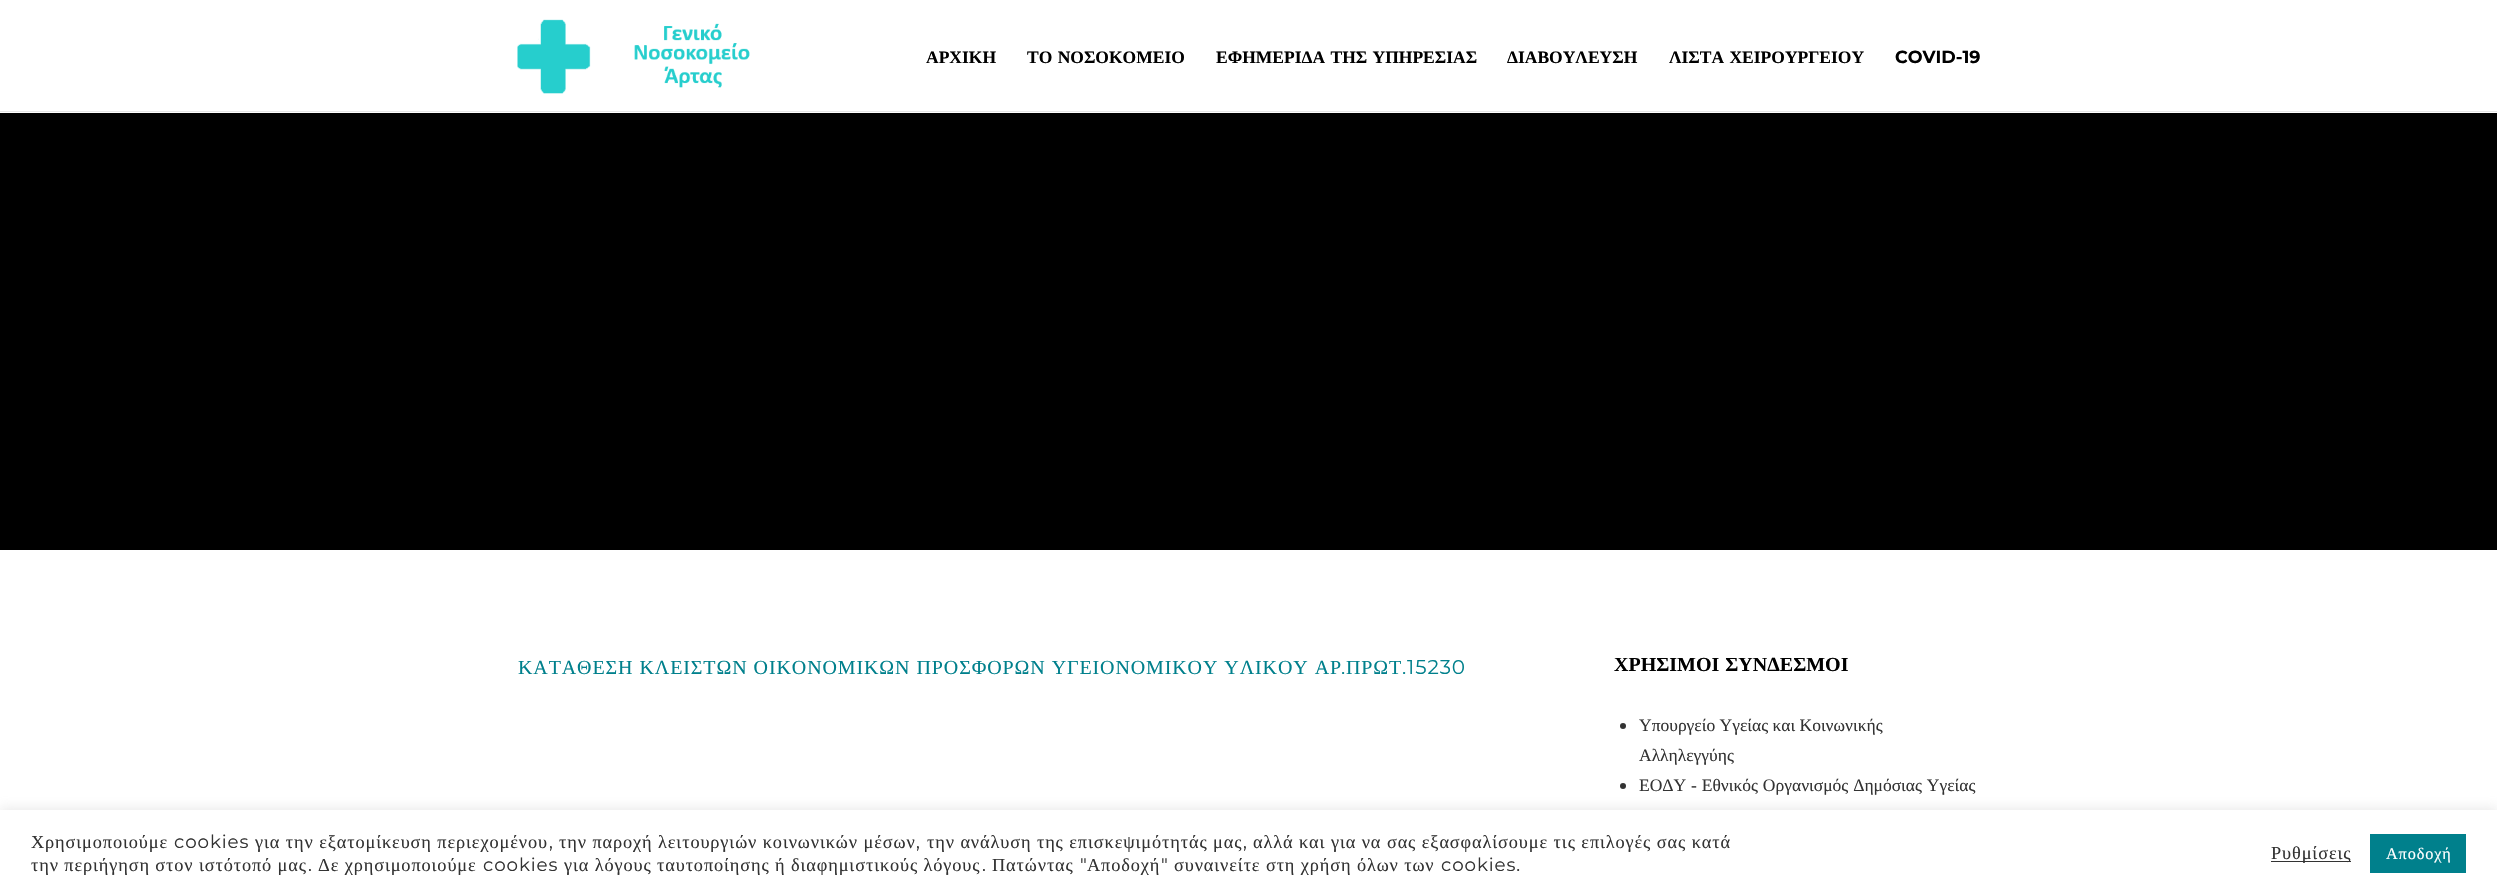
#include "include/core/SkBlurTypes.h"
#include "include/core/SkCanvas.h"
#include "include/core/SkData.h"
#include "include/core/SkFont.h"
#include "include/core/SkFontMgr.h"
#include "include/core/SkImage.h"
#include "include/core/SkMaskFilter.h"
#include "include/core/SkPaint.h"
#include "include/core/SkPathBuilder.h"
#include "include/core/SkTextBlob.h"
#include "include/effects/SkDashPathEffect.h"
#include "include/effects/SkGradientShader.h"
#include "include/utils/SkParsePath.h"

extern sk_sp<SkFontMgr> fontMgr;

static SkFont font(const char* family, int weight, float size, bool italic = false) {
    SkFontStyle style(weight, SkFontStyle::kNormal_Width,
        italic ? SkFontStyle::kItalic_Slant : SkFontStyle::kUpright_Slant);
    SkFont result(fontMgr->matchFamilyStyle(family, style), size);
    result.setSubpixel(true);
    return result;
}

static void drawLabel(SkCanvas* canvas, const char* s, float x, float y, const SkFont& font, SkColor color) {
    SkPaint ink(SkColor4f::FromColor(color));
    ink.setAntiAlias(true);
    canvas->drawString(s, x, y, font, ink);
}

static void drawTracked(SkCanvas* canvas, const char* s, float x, float y, const SkFont& font, const SkPaint& ink, float letter, float word) {
    std::vector<SkGlyphID> glyphs(font.countText(s, strlen(s), SkTextEncoding::kUTF8));
    std::vector<float> xs(glyphs.size());
    font.textToGlyphs(s, strlen(s), SkTextEncoding::kUTF8, glyphs);
    font.getXPos(glyphs, xs, x);
    float extra = 0;
    for (size_t i = 0; i < glyphs.size(); i++) {
        xs[i] += extra;
        extra += letter + word * (glyphs[i] == font.unicharToGlyph(' '));
    }
    canvas->drawTextBlob(SkTextBlob::MakeFromPosHGlyphs(glyphs, xs, y, font), 0, 0, ink);
}

static void fillRect(SkCanvas* canvas, float x, float y, float w, float h, SkColor color) {
    SkPaint ink(SkColor4f::FromColor(color));
    ink.setAntiAlias(true);
    canvas->drawRect(SkRect::MakeXYWH(x, y, w, h), ink);
}

static void drawPhoto(SkCanvas* canvas, const char* path, float x, float y, float w, float h) {
    auto image = SkImages::DeferredFromEncodedData(SkData::MakeFromFileName(path));
    canvas->drawImageRect(image, SkRect::MakeXYWH(x, y, w, h), SkSamplingOptions());
}

void draw(SkCanvas* canvas) {
    SkPaint paint;
    paint.setAntiAlias(true);
    canvas->clear(0xFFFFFFFF);
    fillRect(canvas, 0, 111, 2497, 1, 0xFFE6E6E6);
    drawPhoto(canvas, "assets/img1.png", 517, 19, 233, 75);
    SkFont font1 = font("Liberation Serif", 700, 17.5f);
    drawLabel(canvas, "ΑΡΧΙΚΗ", 926, 63, font1, 0xFF000000);
    paint.setColor(0xFF000000);
    drawTracked(canvas, "ΤΟ ΝΟΣΟΚΟΜΕΙΟ", 1027, 63, font1, paint, 0, 1);
    drawTracked(canvas, "ΕΦΗΜΕΡΙΔΑ ΤΗΣ ΥΠΗΡΕΣΙΑΣ", 1216, 63, font1, paint, 0, 1);
    drawLabel(canvas, "ΔΙΑΒΟΥΛΕΥΣΗ", 1507, 63, font1, 0xFF000000);
    drawTracked(canvas, "ΛΙΣΤΑ ΧΕΙΡΟΥΡΓΕΙΟΥ", 1669, 63, font1, paint, 0, 1);
    SkFont font2 = font("Montserrat", 700, 17.5f);
    drawLabel(canvas, "COVID-19", 1895, 63, font2, 0xFF000000);
    fillRect(canvas, 0, 113, 2497, 437, 0xFF000000);
    SkFont font3 = font("Liberation Serif", 400, 20);
    paint.setColor(0xFF00808C);
    drawTracked(canvas, "ΚΑΤΑΘΕΣΗ ΚΛΕΙΣΤΩΝ ΟΙΚΟΝΟΜΙΚΩΝ ΠΡΟΣΦΟΡΩΝ ΥΓΕΙΟΝΟΜΙΚΟΥ ΥΛΙΚΟΥ ΑΡ", 518, 674, font3, paint, 0.88f, 0.25f);
    SkFont font4 = font("Montserrat", 400, 20);
    drawTracked(canvas, ".", 1341, 674, font4, paint, 0.88f, 0);
    drawTracked(canvas, "ΠΡΩΤ", 1346, 674, font3, paint, 0.88f, 0);
    drawTracked(canvas, ".15230", 1402, 674, font4, paint, 0.88f, 0);
    SkFont font5 = font("Liberation Serif", 700, 20);
    paint.setColor(0xFF000000);
    drawTracked(canvas, "ΧΡΗΣΙΜΟΙ ΣΥΝΔΕΣΜΟΙ", 1614, 671, font5, paint, 0, 1);
    paint.setColor(0xFF333333);
    canvas->drawCircle(1623, 726, 3, paint);
    SkFont font6 = font("Liberation Serif", 400, 17.5f);
    drawLabel(canvas, "Υπουργείο Υγείας και Κοινωνικής", 1639, 731, font6, 0xFF333333);
    drawLabel(canvas, "Αλληλεγγύης", 1639, 761, font6, 0xFF333333);
    canvas->drawCircle(1623, 786, 3, paint);
    drawTracked(canvas, "ΕΟΔΥ - Εθνικός Οργανισμός Δημόσιας Υγείας", 1639, 791, font6, paint, 0, 0.5f);
    paint.setColor(0x4DACABAB);
    paint.setMaskFilter(SkMaskFilter::MakeBlur(kNormal_SkBlurStyle, 6));
    canvas->drawRect(SkRect::MakeXYWH(0, 809, 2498, 86), paint);
    paint.setMaskFilter(nullptr);
    fillRect(canvas, 0, 810, 2497, 86, 0xFFFFFFFF);
    SkFont font7 = font("Liberation Serif", 400, 18.3f);
    paint.setColor(0xFF333333);
    drawTracked(canvas, "Χρησιμοποιούμε", 31, 848, font7, paint, 0.88f, 0);
    SkFont font8 = font("Montserrat", 400, 18.3f);
    drawTracked(canvas, "cookies", 174, 848, font8, paint, 0.88f, 0);
    drawTracked(canvas, "για την εξατομίκευση περιεχομένου", 255, 848, font7, paint, 0.88f, 0.1f);
    drawTracked(canvas, ",", 549, 848, font8, paint, 0.88f, 0);
    drawTracked(canvas, "την παροχή λειτουργιών κοινωνικών μέσων", 559, 848, font7, paint, 0.88f, 0.1f);
    drawTracked(canvas, ",", 916, 848, font8, paint, 0.88f, 0);
    drawTracked(canvas, "την ανάλυση της επισκεψιμότητάς μας", 927, 848, font7, paint, 0.88f, 0.1f);
    drawTracked(canvas, ",", 1243, 848, font8, paint, 0.88f, 0);
    drawTracked(canvas, "αλλά και για να σας εξασφαλίσουμε τις επιλογές σας κατά", 1253, 848, font7, paint, 0.88f, 0.1f);
    drawTracked(canvas, "την περιήγηση στον ιστότοπό μας", 31, 871, font7, paint, 0.88f, 0);
    drawTracked(canvas, ".", 308, 871, font8, paint, 0.88f, 0);
    drawTracked(canvas, "Δε χρησιμοποιούμε", 318, 871, font7, paint, 0.88f, 0);
    drawTracked(canvas, "cookies", 483, 871, font8, paint, 0.88f, 0);
    drawTracked(canvas, "για λόγους ταυτοποίησης ή διαφημιστικούς λόγους", 564, 871, font7, paint, 0.88f, 0);
    drawTracked(canvas, ".", 982, 871, font8, paint, 0.88f, 0);
    drawTracked(canvas, "Πατώντας", 992, 871, font7, paint, 0.88f, 0);
    drawTracked(canvas, "\"", 1080, 871, font8, paint, 0.88f, 0);
    drawTracked(canvas, "Αποδοχή", 1087, 871, font7, paint, 0.88f, 0);
    drawTracked(canvas, "\"", 1161, 871, font8, paint, 0.88f, 0);
    drawTracked(canvas, "συναινείτε στη χρήση όλων των", 1174, 871, font7, paint, 0.88f, 0);
    drawTracked(canvas, "cookies.", 1441, 871, font8, paint, 0.88f, 0);
    fillRect(canvas, 2271, 861, 80, 1, 0xFF333333);
    drawTracked(canvas, "Ρυθμίσεις", 2271, 859, font7, paint, 0.88f, 0);
    fillRect(canvas, 2370, 834, 96, 39, 0xFF00808C);
    SkFont font9 = font("Liberation Serif", 400, 16.25f);
    paint.setColor(0xFFFFFFFF);
    drawTracked(canvas, "Αποδοχή", 2386, 859, font9, paint, 0.88f, 0);
}
